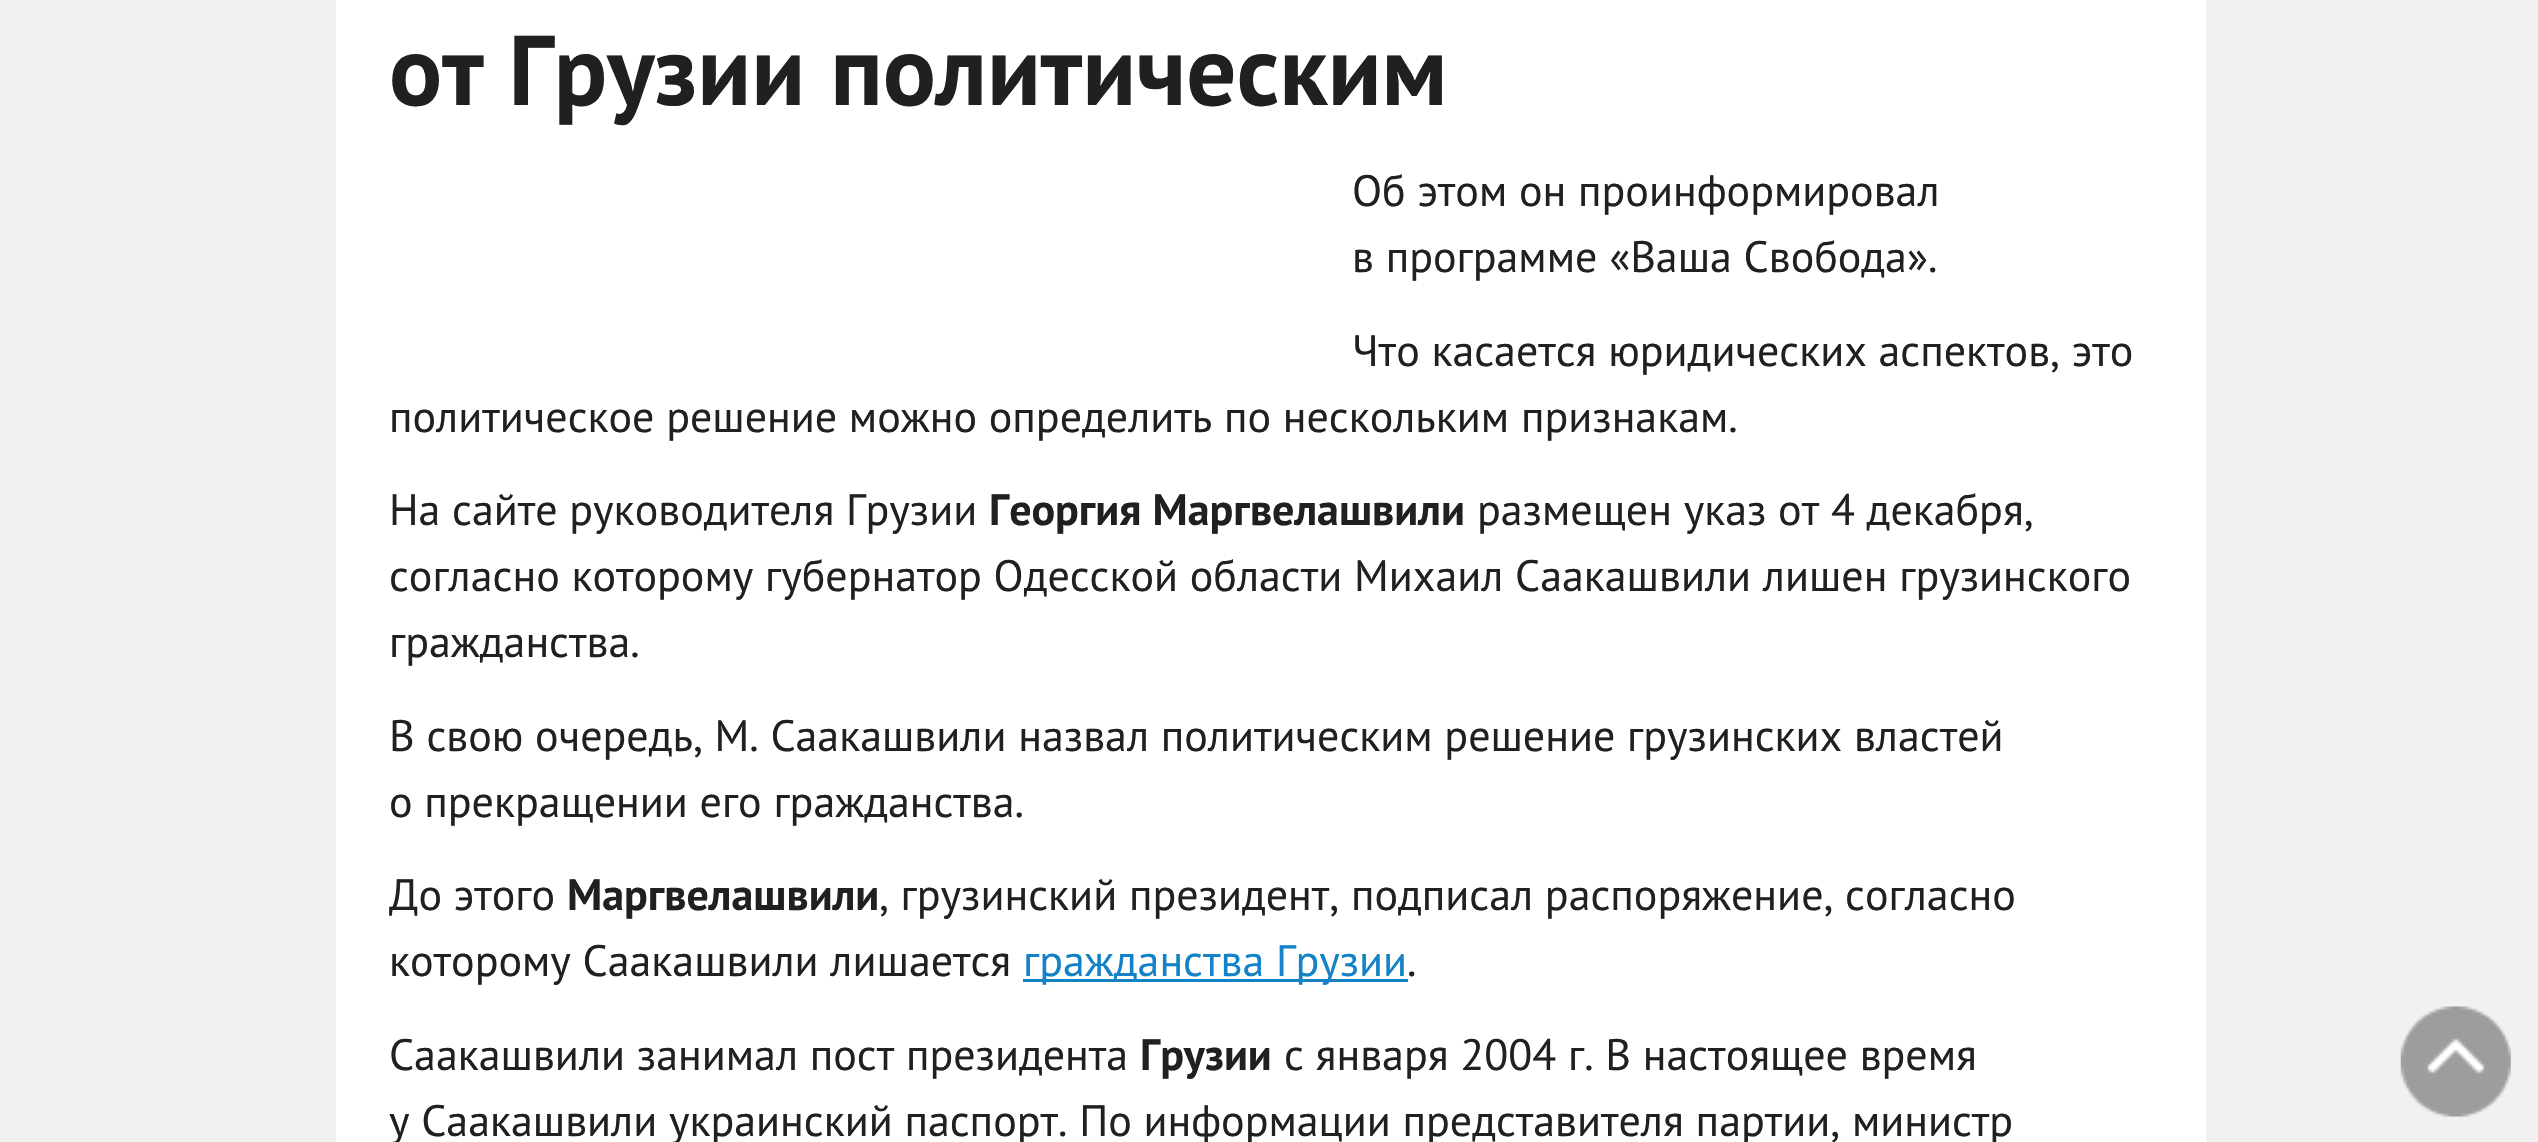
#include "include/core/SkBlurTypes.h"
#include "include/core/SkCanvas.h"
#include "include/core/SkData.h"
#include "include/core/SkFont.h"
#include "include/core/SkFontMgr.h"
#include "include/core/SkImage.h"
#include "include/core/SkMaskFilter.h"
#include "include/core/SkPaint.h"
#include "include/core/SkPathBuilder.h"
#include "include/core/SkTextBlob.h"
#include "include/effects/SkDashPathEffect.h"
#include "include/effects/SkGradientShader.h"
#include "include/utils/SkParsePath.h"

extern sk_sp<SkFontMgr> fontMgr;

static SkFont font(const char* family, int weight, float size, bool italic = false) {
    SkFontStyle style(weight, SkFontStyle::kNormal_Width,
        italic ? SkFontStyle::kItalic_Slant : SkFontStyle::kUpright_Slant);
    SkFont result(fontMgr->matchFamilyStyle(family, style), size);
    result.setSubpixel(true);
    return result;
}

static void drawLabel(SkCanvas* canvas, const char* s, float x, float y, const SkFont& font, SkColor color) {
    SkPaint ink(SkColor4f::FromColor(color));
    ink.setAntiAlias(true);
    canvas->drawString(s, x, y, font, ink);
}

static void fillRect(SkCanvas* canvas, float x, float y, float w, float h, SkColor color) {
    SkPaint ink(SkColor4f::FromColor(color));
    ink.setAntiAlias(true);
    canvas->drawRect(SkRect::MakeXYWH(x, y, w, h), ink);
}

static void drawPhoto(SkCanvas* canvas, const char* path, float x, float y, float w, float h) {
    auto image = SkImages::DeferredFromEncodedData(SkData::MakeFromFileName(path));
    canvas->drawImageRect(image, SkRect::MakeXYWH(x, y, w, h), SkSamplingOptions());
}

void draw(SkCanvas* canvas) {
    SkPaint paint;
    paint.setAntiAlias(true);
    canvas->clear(0xFFF1F1F1);
    fillRect(canvas, 336, 0, 1870, 1142, 0xFFFFFFFF);
    SkFont font1 = font("PT Sans", 700, 99);
    drawLabel(canvas, "от Грузии политическим", 389, 105, font1, 0xFF202020);
    SkFont font2 = font("PT Sans", 400, 44);
    drawLabel(canvas, "Об этом он проинформировал", 1352, 206, font2, 0xFF202020);
    drawLabel(canvas, "в программе «Ваша Свобода».", 1352, 272, font2, 0xFF202020);
    drawLabel(canvas, "Что касается юридических аспектов, это", 1352, 366, font2, 0xFF202020);
    drawLabel(canvas, "политическое решение можно определить по нескольким признакам.", 389, 432, font2, 0xFF202020);
    drawLabel(canvas, "На сайте руководителя Грузии", 389, 525, font2, 0xFF202020);
    SkFont font3 = font("PT Sans", 700, 44);
    drawLabel(canvas, "Георгия Маргвелашвили", 989, 525, font3, 0xFF202020);
    drawLabel(canvas, "размещен указ от 4 декабря,", 1477, 525, font2, 0xFF202020);
    drawLabel(canvas, "согласно которому губернатор Одесской области Михаил Саакашвили лишен грузинского", 389, 591, font2, 0xFF202020);
    drawLabel(canvas, "гражданства.", 389, 657, font2, 0xFF202020);
    drawLabel(canvas, "В свою очередь, М. Саакашвили назвал политическим решение грузинских властей", 389, 751, font2, 0xFF202020);
    drawLabel(canvas, "о прекращении его гражданства.", 389, 817, font2, 0xFF202020);
    drawLabel(canvas, "До этого", 389, 910, font2, 0xFF202020);
    drawLabel(canvas, "Маргвелашвили", 567, 910, font3, 0xFF202020);
    drawLabel(canvas, ", грузинский президент, подписал распоряжение, согласно", 879, 910, font2, 0xFF202020);
    drawLabel(canvas, "которому Саакашвили лишается", 389, 976, font2, 0xFF202020);
    fillRect(canvas, 1023, 979, 385, 3, 0xFF1482C7);
    drawLabel(canvas, "гражданства Грузии", 1023, 976, font2, 0xFF1482C7);
    drawLabel(canvas, ".", 1407, 976, font2, 0xFF202020);
    drawLabel(canvas, "Саакашвили занимал пост президента", 389, 1070, font2, 0xFF202020);
    drawLabel(canvas, "Грузии", 1140, 1070, font3, 0xFF202020);
    drawLabel(canvas, "с января 2004 г. В настоящее время", 1284, 1070, font2, 0xFF202020);
    drawLabel(canvas, "у Саакашвили украинский паспорт. По информации представителя партии, министр", 389, 1136, font2, 0xFF202020);
    drawPhoto(canvas, "assets/img1.png", 2400, 1006, 111, 111);
}
